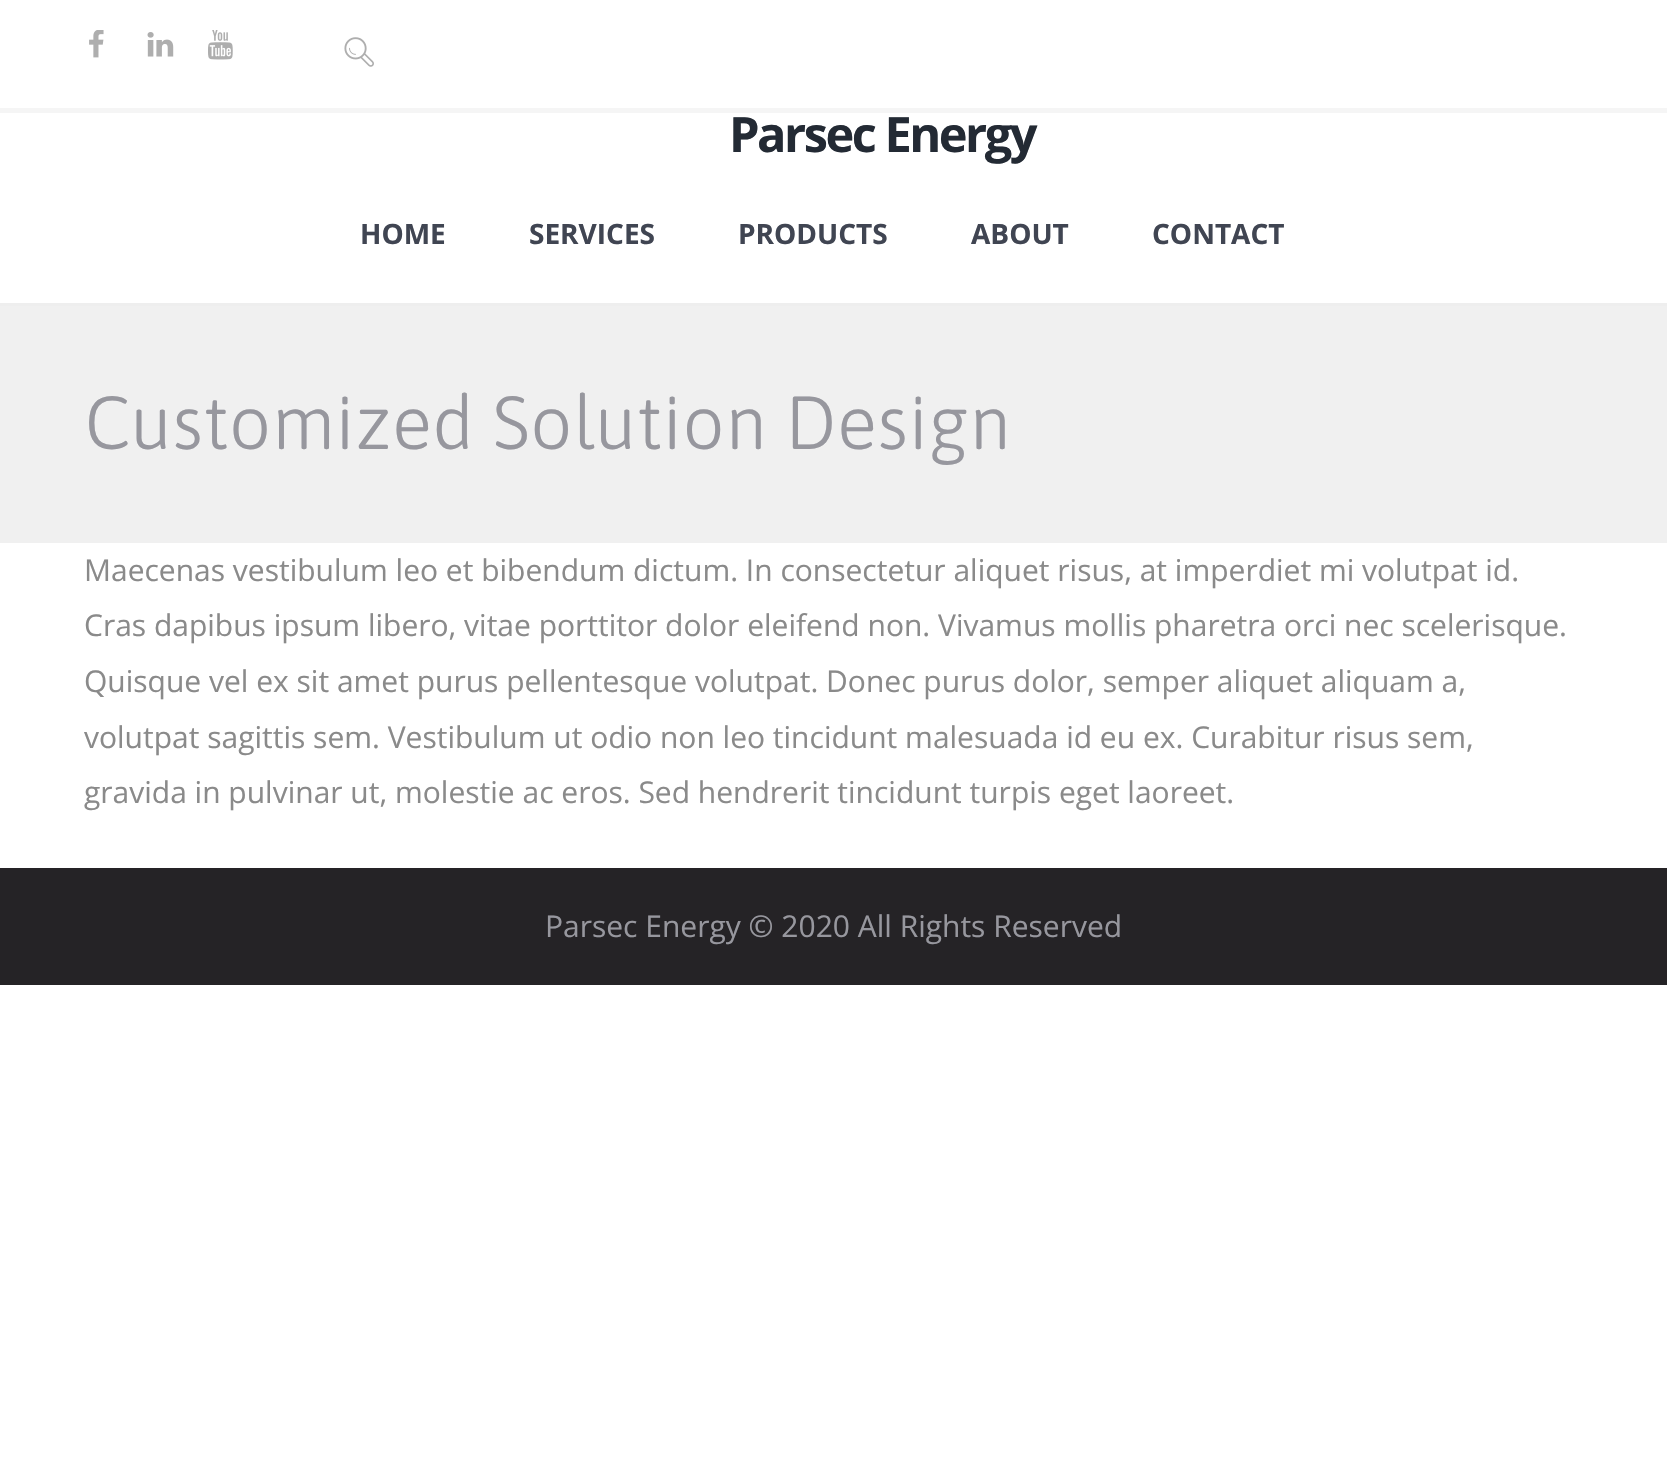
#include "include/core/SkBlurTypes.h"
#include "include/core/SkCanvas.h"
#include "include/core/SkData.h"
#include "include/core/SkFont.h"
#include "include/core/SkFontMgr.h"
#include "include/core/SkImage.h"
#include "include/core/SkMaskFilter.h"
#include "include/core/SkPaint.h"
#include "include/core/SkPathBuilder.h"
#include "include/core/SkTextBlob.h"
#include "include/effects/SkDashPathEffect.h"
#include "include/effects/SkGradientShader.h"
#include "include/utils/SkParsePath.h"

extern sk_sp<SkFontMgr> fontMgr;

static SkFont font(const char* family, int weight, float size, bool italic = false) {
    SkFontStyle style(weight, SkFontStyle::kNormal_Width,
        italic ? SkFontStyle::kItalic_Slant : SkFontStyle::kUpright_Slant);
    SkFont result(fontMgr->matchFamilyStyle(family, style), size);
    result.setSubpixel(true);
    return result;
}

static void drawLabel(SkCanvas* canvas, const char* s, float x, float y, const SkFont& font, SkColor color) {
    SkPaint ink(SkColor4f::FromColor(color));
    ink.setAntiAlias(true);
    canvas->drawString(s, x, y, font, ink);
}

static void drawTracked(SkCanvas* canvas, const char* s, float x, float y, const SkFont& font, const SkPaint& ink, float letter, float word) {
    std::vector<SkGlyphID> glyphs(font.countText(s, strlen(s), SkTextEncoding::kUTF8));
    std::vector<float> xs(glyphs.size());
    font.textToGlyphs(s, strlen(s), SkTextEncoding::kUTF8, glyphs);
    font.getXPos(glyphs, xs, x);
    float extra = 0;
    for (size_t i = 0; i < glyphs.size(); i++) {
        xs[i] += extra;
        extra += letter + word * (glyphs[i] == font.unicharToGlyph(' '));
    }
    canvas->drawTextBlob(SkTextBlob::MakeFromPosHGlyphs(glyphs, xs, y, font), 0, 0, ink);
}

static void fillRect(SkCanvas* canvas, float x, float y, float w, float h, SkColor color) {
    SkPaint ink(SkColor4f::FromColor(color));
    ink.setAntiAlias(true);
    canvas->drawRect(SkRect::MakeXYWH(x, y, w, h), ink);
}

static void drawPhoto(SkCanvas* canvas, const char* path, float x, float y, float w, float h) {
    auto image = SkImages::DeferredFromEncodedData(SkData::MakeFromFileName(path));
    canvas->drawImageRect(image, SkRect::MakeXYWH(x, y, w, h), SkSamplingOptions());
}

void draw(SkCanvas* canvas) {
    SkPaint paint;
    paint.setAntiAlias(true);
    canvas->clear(0xFFFFFFFF);
    fillRect(canvas, 0, 108, 1667, 5, 0xFFF5F5F5);
    drawPhoto(canvas, "assets/img1.png", 89, 30, 15, 28);
    drawPhoto(canvas, "assets/img2.png", 147, 32, 27, 25);
    drawPhoto(canvas, "assets/img3.png", 208, 30, 25, 30);
    drawPhoto(canvas, "assets/img4.png", 344, 37, 30, 30);
    SkFont font1 = font("Open Sans", 700, 48.75f);
    paint.setColor(0xFF232A34);
    drawTracked(canvas, "Parsec Energy", 729, 152, font1, paint, -2.5f, 0);
    SkFont font2 = font("Open Sans", 700, 28);
    drawLabel(canvas, "HOME", 360, 244, font2, 0xFF404552);
    drawLabel(canvas, "SERVICES", 529, 244, font2, 0xFF404552);
    drawLabel(canvas, "PRODUCTS", 738, 244, font2, 0xFF404552);
    drawLabel(canvas, "ABOUT", 971, 244, font2, 0xFF404552);
    drawLabel(canvas, "CONTACT", 1152, 244, font2, 0xFF404552);
    fillRect(canvas, 0, 306, 1667, 237, 0xFFF0F0F0);
    fillRect(canvas, 0, 303, 1667, 3, 0xFFEEEEEE);
    SkFont font3 = font("Asap", 300, 75);
    drawLabel(canvas, "Customized Solution Design", 84, 449, font3, 0xFF97979E);
    SkFont font4 = font("Open Sans", 400, 30);
    drawLabel(canvas, "Maecenas vestibulum leo et bibendum dictum. In consectetur aliquet risus, at imperdiet mi volutpat id.", 84, 581, font4, 0xFF8A8A8A);
    drawLabel(canvas, "Cras dapibus ipsum libero, vitae porttitor dolor eleifend non. Vivamus mollis pharetra orci nec scelerisque.", 84, 636, font4, 0xFF8A8A8A);
    drawLabel(canvas, "Quisque vel ex sit amet purus pellentesque volutpat. Donec purus dolor, semper aliquet aliquam a,", 84, 692, font4, 0xFF8A8A8A);
    drawLabel(canvas, "volutpat sagittis sem. Vestibulum ut odio non leo tincidunt malesuada id eu ex. Curabitur risus sem,", 84, 748, font4, 0xFF8A8A8A);
    drawLabel(canvas, "gravida in pulvinar ut, molestie ac eros. Sed hendrerit tincidunt turpis eget laoreet.", 84, 803, font4, 0xFF8A8A8A);
    fillRect(canvas, 0, 868, 1667, 117, 0xFF252326);
    drawLabel(canvas, "Parsec Energy © 2020 All Rights Reserved", 545, 937, font4, 0xFF97979E);
}
